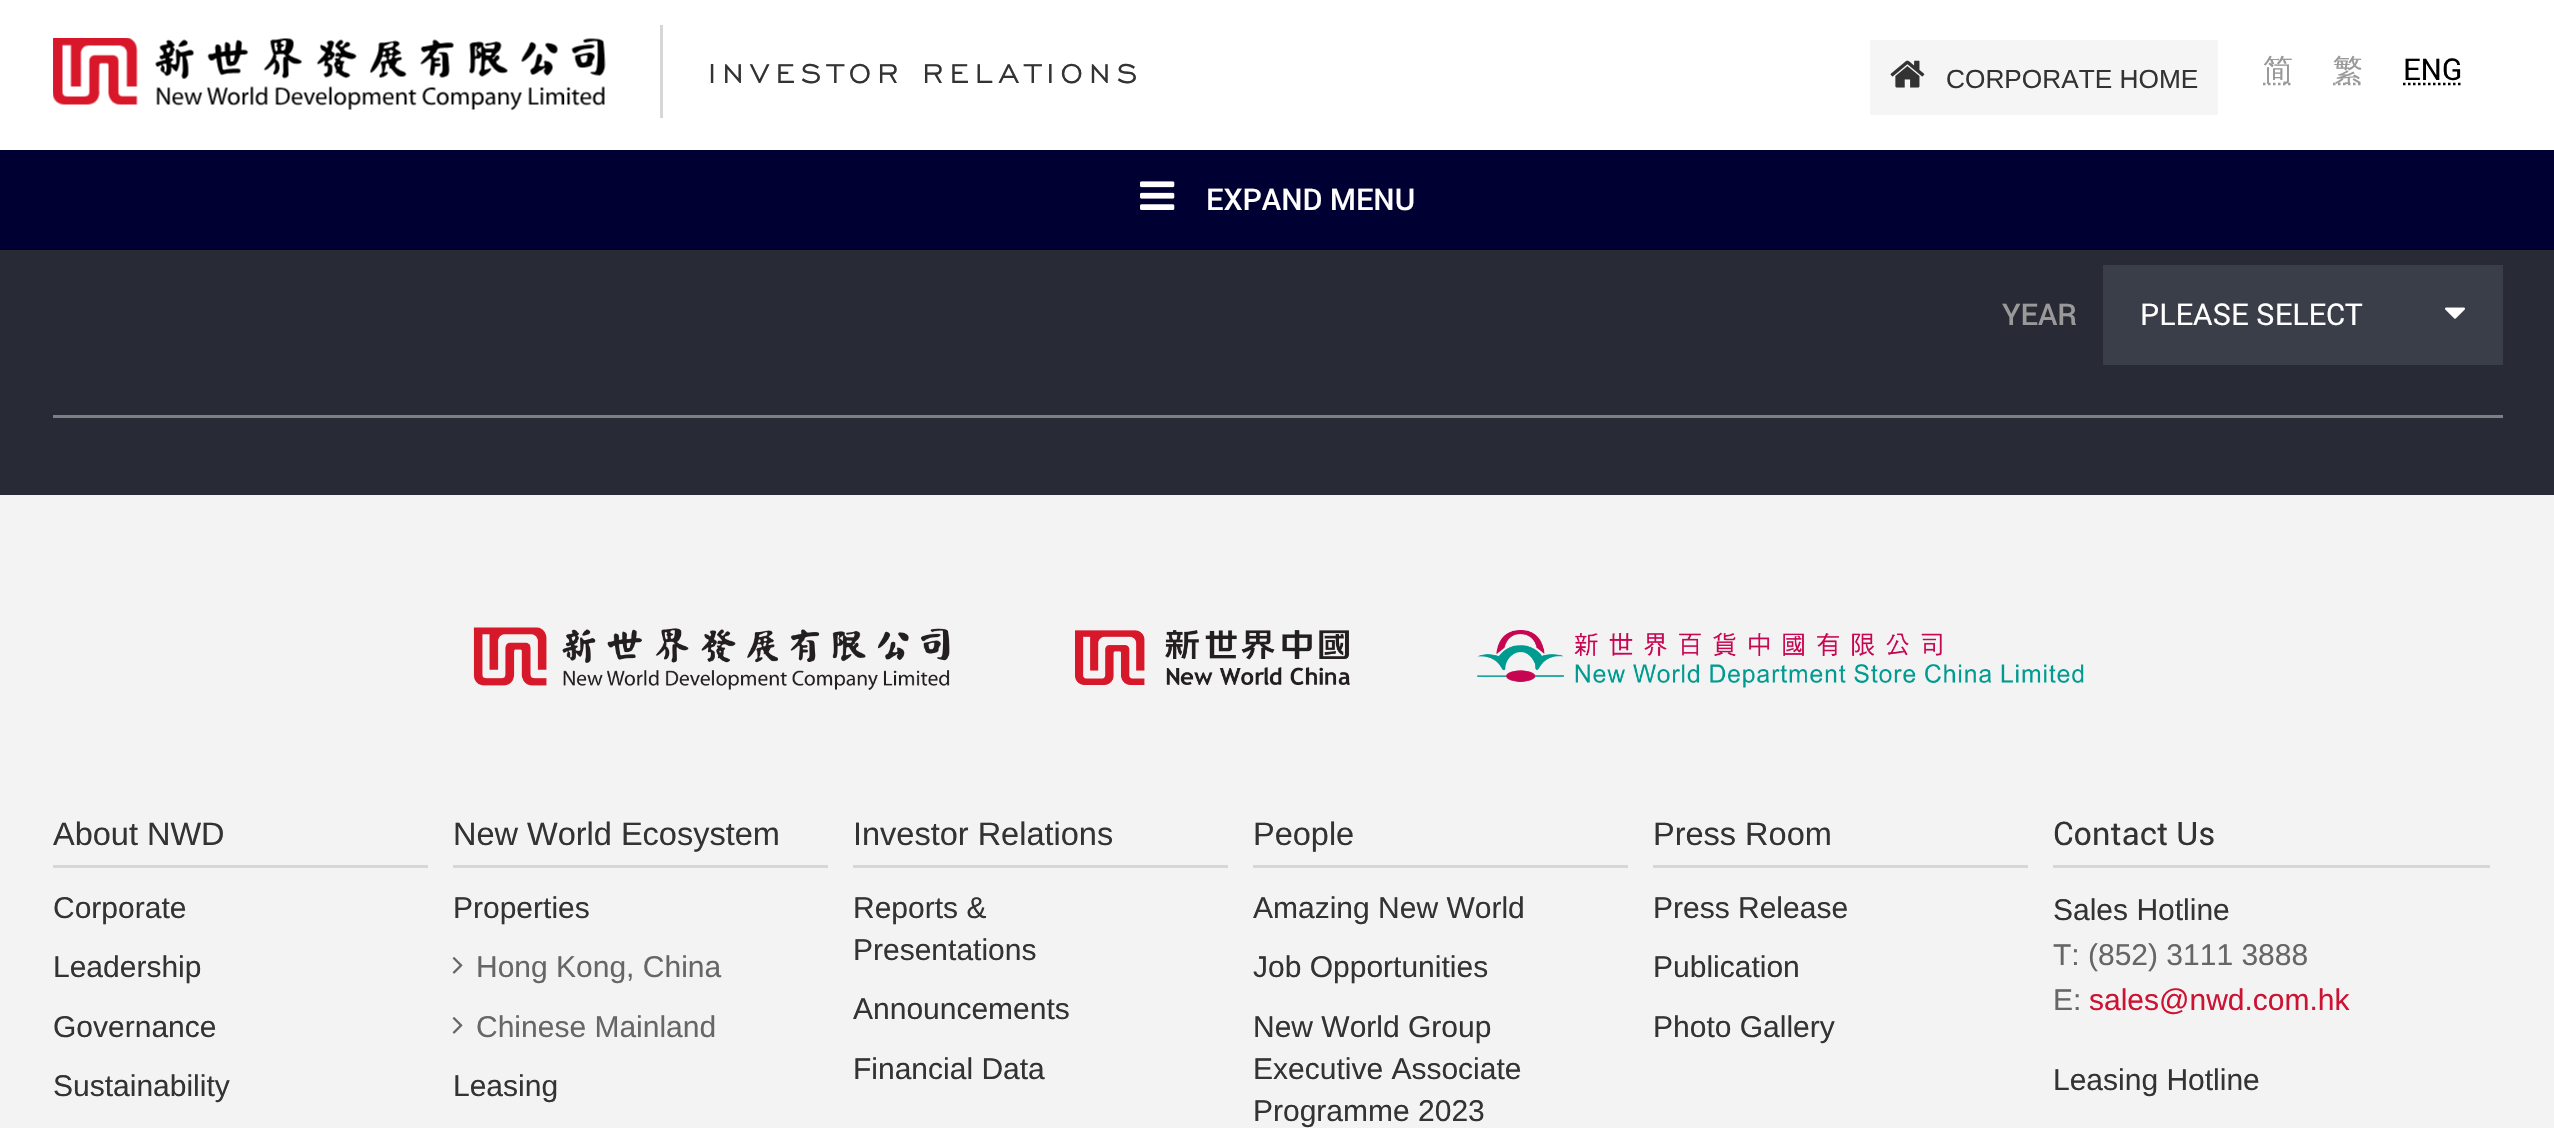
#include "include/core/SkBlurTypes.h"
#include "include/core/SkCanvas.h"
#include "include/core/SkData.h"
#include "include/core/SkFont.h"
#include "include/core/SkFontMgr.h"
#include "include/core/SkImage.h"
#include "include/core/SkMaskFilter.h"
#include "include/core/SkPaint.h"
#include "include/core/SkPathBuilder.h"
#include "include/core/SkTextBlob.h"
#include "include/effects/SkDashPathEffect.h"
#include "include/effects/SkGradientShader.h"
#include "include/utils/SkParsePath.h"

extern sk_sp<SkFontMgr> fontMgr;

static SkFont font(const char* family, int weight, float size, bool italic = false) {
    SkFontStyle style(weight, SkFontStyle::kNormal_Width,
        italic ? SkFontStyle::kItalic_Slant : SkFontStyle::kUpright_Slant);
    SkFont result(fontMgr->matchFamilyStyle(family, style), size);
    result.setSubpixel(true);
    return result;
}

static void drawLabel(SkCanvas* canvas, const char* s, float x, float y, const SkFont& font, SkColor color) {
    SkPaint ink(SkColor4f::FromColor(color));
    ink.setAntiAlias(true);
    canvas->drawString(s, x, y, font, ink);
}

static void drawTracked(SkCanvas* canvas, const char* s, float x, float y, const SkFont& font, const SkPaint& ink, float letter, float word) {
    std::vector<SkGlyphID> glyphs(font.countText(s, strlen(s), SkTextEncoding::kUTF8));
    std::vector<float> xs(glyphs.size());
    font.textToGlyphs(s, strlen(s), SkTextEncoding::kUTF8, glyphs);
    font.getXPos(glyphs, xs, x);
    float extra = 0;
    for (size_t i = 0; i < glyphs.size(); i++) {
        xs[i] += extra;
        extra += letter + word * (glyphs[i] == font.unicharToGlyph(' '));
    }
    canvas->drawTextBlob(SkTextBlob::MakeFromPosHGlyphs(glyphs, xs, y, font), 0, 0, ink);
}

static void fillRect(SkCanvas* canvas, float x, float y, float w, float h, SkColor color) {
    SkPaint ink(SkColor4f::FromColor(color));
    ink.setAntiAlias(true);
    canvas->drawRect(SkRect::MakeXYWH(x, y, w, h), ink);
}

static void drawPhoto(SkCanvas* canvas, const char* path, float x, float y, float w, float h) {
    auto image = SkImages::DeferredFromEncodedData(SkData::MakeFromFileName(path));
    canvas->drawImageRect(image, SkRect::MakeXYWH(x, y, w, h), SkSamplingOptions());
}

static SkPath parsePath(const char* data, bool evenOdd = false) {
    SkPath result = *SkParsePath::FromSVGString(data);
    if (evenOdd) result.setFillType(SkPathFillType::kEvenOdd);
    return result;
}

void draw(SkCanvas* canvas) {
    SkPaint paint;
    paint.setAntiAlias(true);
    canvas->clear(0xFF282B36);
    fillRect(canvas, 0, 0, 2554, 150, 0xFFFFFFFF);
    drawPhoto(canvas, "assets/img1.png", 53, 38, 553, 73);
    fillRect(canvas, 660, 25, 3, 93, 0xFFD6D6D6);
    SkFont font1 = font("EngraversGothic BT", 400, 35);
    paint.setColor(0xFF333333);
    drawTracked(canvas, "INVESTOR RELATIONS", 708, 83, font1, paint, 6.25f, 0);
    fillRect(canvas, 1870, 40, 348, 75, 0xFFF5F5F5);
    drawPhoto(canvas, "assets/img2.png", 1890, 60, 35, 28);
    SkFont font2 = font("Liberation Sans", 400, 26.25f);
    drawLabel(canvas, "CORPORATE HOME", 1946, 88, font2, 0xFF333333);
    paint.setStroke(true);
    paint.setStrokeWidth(2.5f);
    paint.setColor(0xFF999999);
    paint.setPathEffect(SkDashPathEffect::Make({{2.5f, 2.5f}}, 0));
    canvas->drawPath(parsePath("M2263 84H2293"), paint);
    paint.setPathEffect(nullptr);
    SkFont font3 = font("WenQuanYi Zen Hei", 500, 30);
    drawLabel(canvas, "简", 2263, 80, font3, 0xFF999999);
    paint.setPathEffect(SkDashPathEffect::Make({{2.5f, 2.5f}}, 0));
    canvas->drawPath(parsePath("M2333 84H2363"), paint);
    paint.setPathEffect(nullptr);
    drawLabel(canvas, "繁", 2333, 80, font3, 0xFF999999);
    SkFont font4 = font("Roboto", 400, 30);
    drawLabel(canvas, "ENG", 2403, 80, font4, 0xFF000000);
    paint.setColor(0xFF000000);
    paint.setPathEffect(SkDashPathEffect::Make({{2.5f, 2.5f}}, 0));
    canvas->drawPath(parsePath("M2403 84H2462.5"), paint);
    paint.setPathEffect(nullptr);
    fillRect(canvas, 0, 150, 2554, 100, 0xFF000033);
    drawPhoto(canvas, "assets/img3.png", 1140, 181, 35, 29);
    SkFont font5 = font("Roboto", 500, 30);
    drawLabel(canvas, "EXPAND MENU", 1206, 210, font5, 0xFFFFFFFF);
    drawLabel(canvas, "YEAR", 2002, 325, font5, 0xFF999999);
    fillRect(canvas, 2103, 265, 400, 100, 0xFF393E49);
    drawLabel(canvas, "PLEASE SELECT", 2140, 325, font4, 0xFFFFFFFF);
    drawPhoto(canvas, "assets/img4.png", 2445, 307, 20, 12);
    fillRect(canvas, 53, 415, 2450, 3, 0xFF7E8086);
    fillRect(canvas, 0, 495, 2554, 633, 0xFFF3F3F3);
    drawPhoto(canvas, "assets/img5.png", 473, 627, 477, 63);
    drawPhoto(canvas, "assets/img6.png", 1075, 630, 275, 55);
    drawPhoto(canvas, "assets/img7.png", 1477, 630, 607, 58);
    fillRect(canvas, 53, 865, 375, 3, 0xFFD7D7D7);
    SkFont font6 = font("Liberation Sans", 400, 32.5f);
    drawLabel(canvas, "About NWD", 53, 845, font6, 0xFF333333);
    SkFont font7 = font("Liberation Sans", 400, 30);
    drawLabel(canvas, "Corporate", 53, 918, font7, 0xFF333333);
    drawLabel(canvas, "Leadership", 53, 977, font7, 0xFF333333);
    drawLabel(canvas, "Governance", 53, 1037, font7, 0xFF333333);
    drawLabel(canvas, "Sustainability", 53, 1096, font7, 0xFF333333);
    fillRect(canvas, 453, 865, 375, 3, 0xFFD7D7D7);
    drawLabel(canvas, "New World Ecosystem", 453, 845, font6, 0xFF333333);
    drawLabel(canvas, "Properties", 453, 918, font7, 0xFF333333);
    drawPhoto(canvas, "assets/img8.png", 452, 957, 11, 17);
    drawLabel(canvas, "Hong Kong, China", 476, 977, font7, 0xFF666666);
    drawPhoto(canvas, "assets/img8.png", 452, 1017, 11, 17);
    drawLabel(canvas, "Chinese Mainland", 476, 1037, font7, 0xFF666666);
    drawLabel(canvas, "Leasing", 453, 1096, font7, 0xFF333333);
    fillRect(canvas, 853, 865, 375, 3, 0xFFD7D7D7);
    drawLabel(canvas, "Investor Relations", 853, 845, font6, 0xFF333333);
    drawLabel(canvas, "Reports &", 853, 918, font7, 0xFF333333);
    drawLabel(canvas, "Presentations", 853, 960, font7, 0xFF333333);
    drawLabel(canvas, "Announcements", 853, 1019, font7, 0xFF333333);
    drawLabel(canvas, "Financial Data", 853, 1079, font7, 0xFF333333);
    fillRect(canvas, 1253, 865, 375, 3, 0xFFD7D7D7);
    drawLabel(canvas, "People", 1253, 845, font6, 0xFF333333);
    drawLabel(canvas, "Amazing New World", 1253, 918, font7, 0xFF333333);
    drawLabel(canvas, "Job Opportunities", 1253, 977, font7, 0xFF333333);
    drawLabel(canvas, "New World Group", 1253, 1037, font7, 0xFF333333);
    drawLabel(canvas, "Executive Associate", 1253, 1079, font7, 0xFF333333);
    drawLabel(canvas, "Programme 2023", 1253, 1121, font7, 0xFF333333);
    fillRect(canvas, 1653, 865, 375, 3, 0xFFD7D7D7);
    drawLabel(canvas, "Press Room", 1653, 845, font6, 0xFF333333);
    drawLabel(canvas, "Press Release", 1653, 918, font7, 0xFF333333);
    drawLabel(canvas, "Publication", 1653, 977, font7, 0xFF333333);
    drawLabel(canvas, "Photo Gallery", 1653, 1037, font7, 0xFF333333);
    fillRect(canvas, 2053, 865, 437, 3, 0xFFD7D7D7);
    SkFont font8 = font("Roboto", 400, 32.5f);
    drawLabel(canvas, "Contact Us", 2053, 845, font8, 0xFF333333);
    drawLabel(canvas, "Sales Hotline", 2053, 920, font7, 0xFF333333);
    drawLabel(canvas, "T: (852) 3111 3888", 2053, 965, font7, 0xFF666666);
    drawLabel(canvas, "E:", 2053, 1010, font7, 0xFF666666);
    drawLabel(canvas, "sales@nwd.com.hk", 2089, 1010, font7, 0xFFCC1333);
    drawLabel(canvas, "Leasing Hotline", 2053, 1090, font7, 0xFF333333);
}
